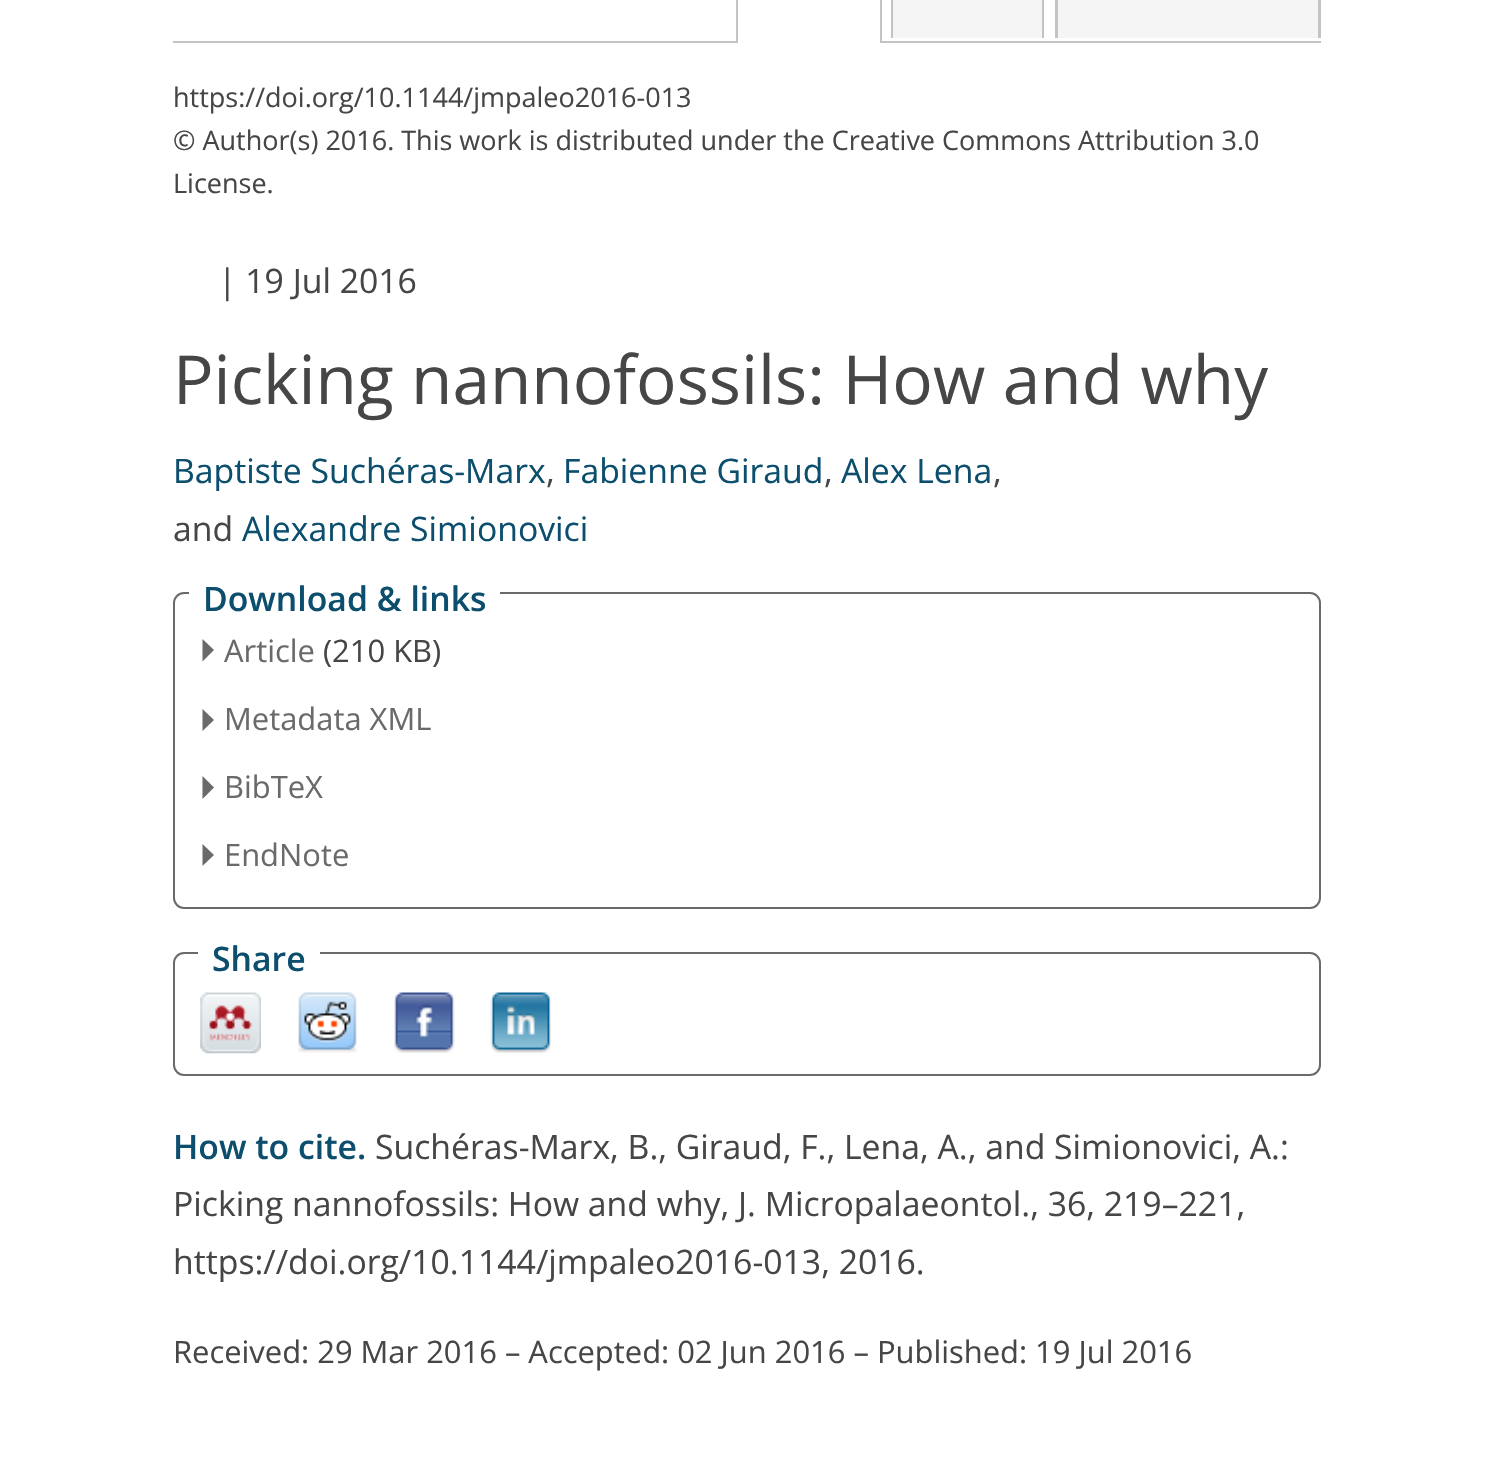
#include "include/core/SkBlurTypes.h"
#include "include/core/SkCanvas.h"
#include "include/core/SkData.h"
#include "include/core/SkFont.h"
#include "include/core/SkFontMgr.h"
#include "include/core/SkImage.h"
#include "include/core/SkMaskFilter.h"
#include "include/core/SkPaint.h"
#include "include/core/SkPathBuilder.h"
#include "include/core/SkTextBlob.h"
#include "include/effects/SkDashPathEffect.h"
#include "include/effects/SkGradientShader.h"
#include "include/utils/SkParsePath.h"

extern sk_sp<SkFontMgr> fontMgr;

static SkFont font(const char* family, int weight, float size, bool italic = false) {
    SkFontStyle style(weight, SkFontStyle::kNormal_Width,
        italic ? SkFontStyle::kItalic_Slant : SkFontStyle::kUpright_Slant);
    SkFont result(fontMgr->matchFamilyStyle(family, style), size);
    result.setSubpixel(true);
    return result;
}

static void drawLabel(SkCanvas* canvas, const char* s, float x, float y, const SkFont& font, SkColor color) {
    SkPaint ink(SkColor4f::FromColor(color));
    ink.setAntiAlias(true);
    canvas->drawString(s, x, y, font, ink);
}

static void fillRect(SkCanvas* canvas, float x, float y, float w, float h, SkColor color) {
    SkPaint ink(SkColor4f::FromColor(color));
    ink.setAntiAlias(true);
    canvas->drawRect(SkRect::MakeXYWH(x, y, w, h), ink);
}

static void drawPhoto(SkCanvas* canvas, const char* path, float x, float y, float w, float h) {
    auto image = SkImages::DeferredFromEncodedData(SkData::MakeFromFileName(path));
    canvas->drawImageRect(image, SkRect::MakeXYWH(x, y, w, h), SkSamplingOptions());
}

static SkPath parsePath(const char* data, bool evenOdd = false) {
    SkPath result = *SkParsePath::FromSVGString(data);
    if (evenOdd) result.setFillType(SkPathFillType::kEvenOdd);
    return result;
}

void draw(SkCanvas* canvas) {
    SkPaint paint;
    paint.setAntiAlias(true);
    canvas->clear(0xFFFFFFFF);
    fillRect(canvas, 173, 41, 1148, 2, 0xFFC3C3C3);
    fillRect(canvas, 738, 41, 142, 2, 0xFFFFFFFF);
    paint.setColor(0xFFC3C3C3);
    canvas->drawPath(parsePath("M747-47H871C877-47 882-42 882-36V43H736V-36C736-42 741-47 747-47ZM747-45H871C876-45 880-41 880-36V43H738V-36C738-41 742-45 747-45Z", true), paint);
    fillRect(canvas, 893, 0, 149, 38, 0xFFF5F5F5);
    canvas->drawPath(parsePath("M902-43H1033C1039-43 1044-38 1044-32V38H891V-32C891-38 896-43 902-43ZM902-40H1033C1038-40 1042-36 1042-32V38H893V-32C893-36 897-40 902-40Z", true), paint);
    fillRect(canvas, 1058, 0, 260, 38, 0xFFF5F5F5);
    canvas->drawPath(parsePath("M1066-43H1310C1316-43 1321-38 1321-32V38H1055V-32C1055-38 1060-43 1066-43ZM1066-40H1310C1314-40 1318-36 1318-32V38H1058V-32C1058-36 1062-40 1066-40Z", true), paint);
    SkFont font1 = font("Open Sans", 400, 27);
    drawLabel(canvas, "https://doi.org/10.1144/jmpaleo2016-013", 173, 107, font1, 0xFF464646);
    drawLabel(canvas, "© Author(s) 2016. This work is distributed under the Creative Commons Attribution 3.0", 173, 150, font1, 0xFF464646);
    drawLabel(canvas, "License.", 173, 193, font1, 0xFF464646);
    SkFont font2 = font("Open Sans", 400, 33.75f);
    drawLabel(canvas, "| 19 Jul 2016", 218, 293, font2, 0xFF464646);
    SkFont font3 = font("Open Sans", 400, 67.5f);
    drawLabel(canvas, "Picking nannofossils: How and why", 173, 404, font3, 0xFF464646);
    drawLabel(canvas, "Baptiste Suchéras-Marx", 173, 483, font2, 0xFF0C4E6D);
    drawLabel(canvas, ",", 546, 483, font2, 0xFF464646);
    drawLabel(canvas, "Fabienne Giraud", 563, 483, font2, 0xFF0C4E6D);
    drawLabel(canvas, ",", 824, 483, font2, 0xFF464646);
    drawLabel(canvas, "Alex Lena", 841, 483, font2, 0xFF0C4E6D);
    drawLabel(canvas, ",", 993, 483, font2, 0xFF464646);
    drawLabel(canvas, "and", 173, 541, font2, 0xFF464646);
    drawLabel(canvas, "Alexandre Simionovici", 242, 541, font2, 0xFF0C4E6D);
    paint.setStroke(true);
    paint.setStrokeWidth(2);
    paint.setColor(0xFF6A6A6A);
    canvas->drawRoundRect(SkRect::MakeXYWH(174, 593, 1146, 315), 10, 10, paint);
    fillRect(canvas, 189, 592, 311, 2, 0xFFFFFFFF);
    SkFont font4 = font("Open Sans", 600, 33.75f);
    drawLabel(canvas, "Download & links", 203, 611, font4, 0xFF0C4E6D);
    paint.setStroke(false);
    canvas->drawPath(parsePath("M202.5 661.5V639L214 650Z"), paint);
    SkFont font5 = font("Open Sans", 400, 30.9f);
    drawLabel(canvas, "Article", 224, 662, font5, 0xFF6A6A6A);
    drawLabel(canvas, "(210 KB)", 323, 662, font5, 0xFF464646);
    canvas->drawPath(parsePath("M202.5 731V709L214 720Z"), paint);
    drawLabel(canvas, "Metadata XML", 224, 730, font5, 0xFF6A6A6A);
    canvas->drawPath(parsePath("M202.5 799V776L214 787.5Z"), paint);
    drawLabel(canvas, "BibTeX", 224, 798, font5, 0xFF6A6A6A);
    canvas->drawPath(parsePath("M202.5 866V844L214 855Z"), paint);
    drawLabel(canvas, "EndNote", 224, 866, font5, 0xFF6A6A6A);
    paint.setStroke(true);
    canvas->drawRoundRect(SkRect::MakeXYWH(174, 953, 1146, 122), 10, 10, paint);
    fillRect(canvas, 198, 952, 122, 2, 0xFFFFFFFF);
    drawLabel(canvas, "Share", 212, 971, font4, 0xFF0C4E6D);
    drawPhoto(canvas, "assets/img1.png", 200, 992, 61, 62);
    drawPhoto(canvas, "assets/img2.png", 298, 992, 59, 61);
    drawPhoto(canvas, "assets/img3.png", 394, 992, 61, 61);
    drawPhoto(canvas, "assets/img4.png", 490, 992, 61, 61);
    drawLabel(canvas, "How to cite.", 173, 1159, font4, 0xFF0C4E6D);
    drawLabel(canvas, "Suchéras-Marx, B., Giraud, F., Lena, A., and Simionovici, A.:", 375, 1159, font2, 0xFF464646);
    drawLabel(canvas, "Picking nannofossils: How and why, J. Micropalaeontol., 36, 219–221,", 173, 1216, font2, 0xFF464646);
    drawLabel(canvas, "https://doi.org/10.1144/jmpaleo2016-013, 2016.", 173, 1274, font2, 0xFF464646);
    drawLabel(canvas, "Received: 29 Mar 2016 – Accepted: 02 Jun 2016 – Published: 19 Jul 2016", 173, 1363, font5, 0xFF464646);
}
